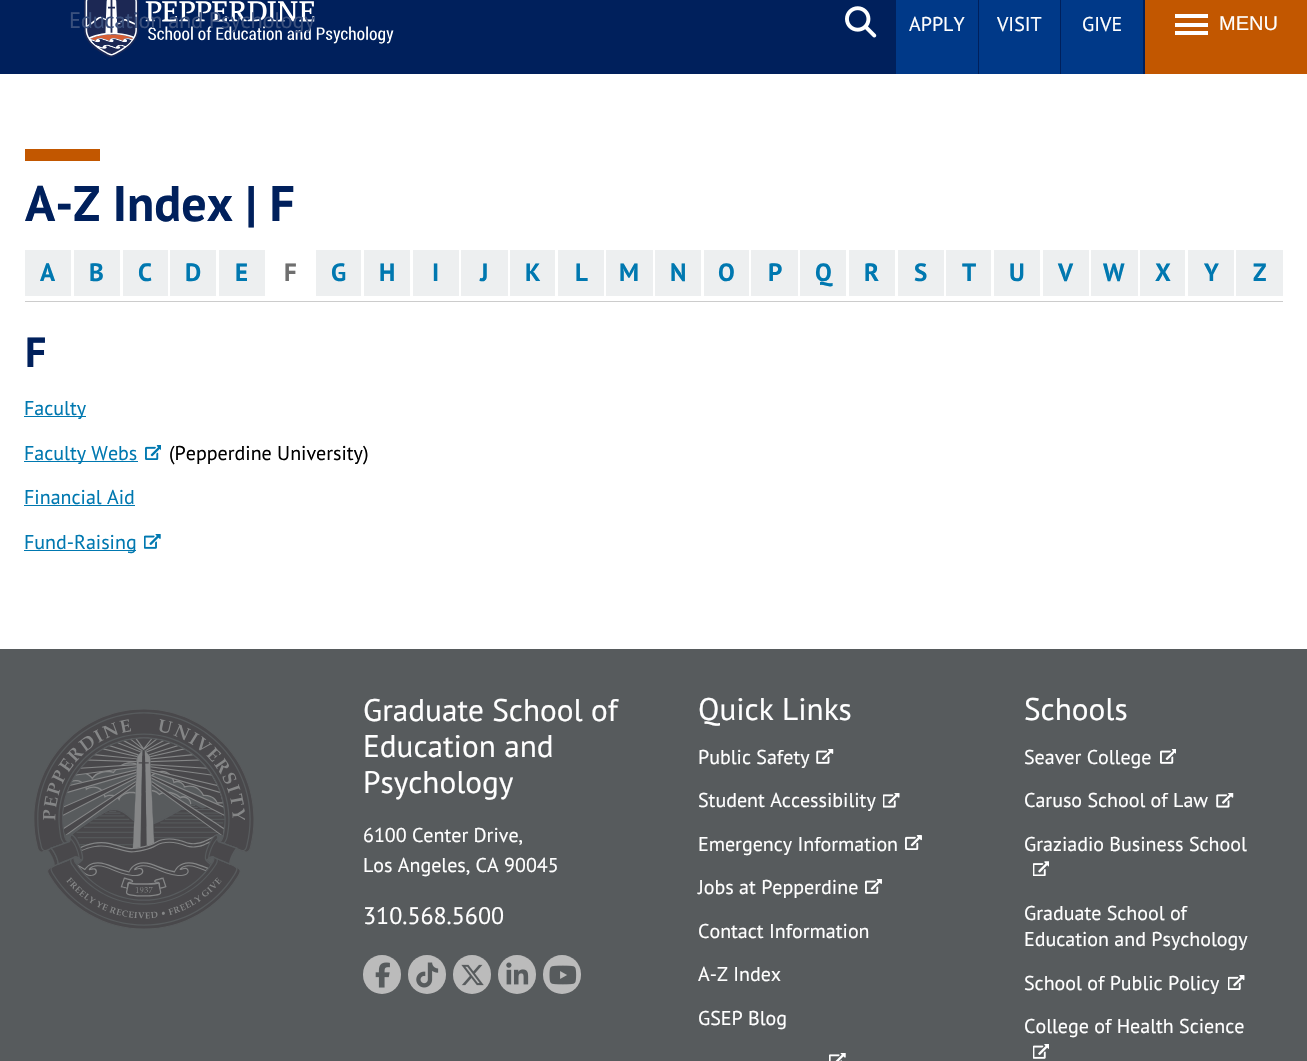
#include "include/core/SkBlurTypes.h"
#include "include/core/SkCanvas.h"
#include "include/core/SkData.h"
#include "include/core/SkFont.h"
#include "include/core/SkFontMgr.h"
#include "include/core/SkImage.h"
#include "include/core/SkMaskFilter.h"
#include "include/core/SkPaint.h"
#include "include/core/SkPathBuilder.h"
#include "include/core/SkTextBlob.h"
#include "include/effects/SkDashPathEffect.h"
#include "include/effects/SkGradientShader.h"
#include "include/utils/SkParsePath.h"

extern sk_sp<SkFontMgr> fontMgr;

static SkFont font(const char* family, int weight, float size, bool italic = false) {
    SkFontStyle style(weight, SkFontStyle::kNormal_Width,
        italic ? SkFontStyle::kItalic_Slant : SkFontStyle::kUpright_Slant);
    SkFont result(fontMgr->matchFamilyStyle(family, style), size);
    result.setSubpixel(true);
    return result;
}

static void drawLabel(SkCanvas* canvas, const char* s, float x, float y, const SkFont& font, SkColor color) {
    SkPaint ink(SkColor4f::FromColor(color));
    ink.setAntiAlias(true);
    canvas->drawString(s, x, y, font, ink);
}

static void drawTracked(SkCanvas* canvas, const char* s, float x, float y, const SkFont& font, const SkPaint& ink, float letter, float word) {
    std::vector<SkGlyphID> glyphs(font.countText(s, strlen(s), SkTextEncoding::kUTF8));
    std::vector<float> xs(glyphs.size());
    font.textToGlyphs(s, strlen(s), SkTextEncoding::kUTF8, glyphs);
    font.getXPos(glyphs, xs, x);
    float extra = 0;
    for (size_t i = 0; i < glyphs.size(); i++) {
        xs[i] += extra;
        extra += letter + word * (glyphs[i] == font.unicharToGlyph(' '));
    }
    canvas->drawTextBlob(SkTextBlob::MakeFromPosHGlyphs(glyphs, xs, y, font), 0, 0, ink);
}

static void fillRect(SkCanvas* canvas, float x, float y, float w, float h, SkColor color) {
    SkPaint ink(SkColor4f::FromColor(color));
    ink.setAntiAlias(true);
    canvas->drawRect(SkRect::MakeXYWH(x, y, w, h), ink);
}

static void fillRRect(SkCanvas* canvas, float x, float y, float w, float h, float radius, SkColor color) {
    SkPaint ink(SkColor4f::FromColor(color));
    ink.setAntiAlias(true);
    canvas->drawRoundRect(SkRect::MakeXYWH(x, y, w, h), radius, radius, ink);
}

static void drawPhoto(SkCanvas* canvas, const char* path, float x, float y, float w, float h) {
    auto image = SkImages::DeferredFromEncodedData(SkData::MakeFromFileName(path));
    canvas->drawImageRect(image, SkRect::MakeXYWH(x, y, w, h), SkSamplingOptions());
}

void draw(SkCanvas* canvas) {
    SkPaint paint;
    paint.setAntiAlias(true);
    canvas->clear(0xFFFFFFFF);
    fillRect(canvas, 0, 0, 1145, 74, 0xFF00205C);
    drawPhoto(canvas, "assets/img1.png", 84, 0, 310, 57);
    SkFont font1 = font("PT Sans", 400, 22.5f);
    paint.setColor(0xFF3A507D);
    drawTracked(canvas, "Education and Psychology", 69, 28, font1, paint, -0.25f, 0);
    drawPhoto(canvas, "assets/img2.png", 845, 6, 32, 32);
    fillRect(canvas, 896, 0, 82, 74, 0xFF003988);
    SkFont font2 = font("PT Sans", 400, 20);
    drawLabel(canvas, "APPLY", 909, 31, font2, 0xFFFFFFFF);
    fillRect(canvas, 979, 0, 81, 74, 0xFF003988);
    drawLabel(canvas, "VISIT", 997, 31, font2, 0xFFFFFFFF);
    fillRect(canvas, 1061, 0, 82, 74, 0xFF003988);
    drawLabel(canvas, "GIVE", 1082, 31, font2, 0xFFFFFFFF);
    fillRect(canvas, 1145, 0, 162, 74, 0xFFC25700);
    fillRect(canvas, 1175, 14, 33, 4, 0xFFFFFFFF);
    fillRect(canvas, 1175, 23, 33, 4, 0xFFFFFFFF);
    fillRect(canvas, 1175, 31, 33, 4, 0xFFFFFFFF);
    SkFont font3 = font("Liberation Sans", 400, 20);
    drawLabel(canvas, "MENU", 1219, 30, font3, 0xFFFFFFFF);
    fillRect(canvas, 25, 149, 75, 12, 0xFFC25700);
    SkFont font4 = font("PT Sans", 700, 50);
    drawLabel(canvas, "A-Z Index | F", 25, 221, font4, 0xFF00205C);
    fillRect(canvas, 25, 250, 46, 46, 0xFFEDEFF0);
    SkFont font5 = font("PT Sans", 700, 25);
    drawLabel(canvas, "A", 40, 281, font5, 0xFF0078B0);
    fillRect(canvas, 74, 250, 46, 46, 0xFFEDEFF0);
    drawLabel(canvas, "B", 89, 281, font5, 0xFF0078B0);
    fillRect(canvas, 123, 250, 45, 46, 0xFFEDEFF0);
    drawLabel(canvas, "C", 138, 281, font5, 0xFF0078B0);
    fillRect(canvas, 170, 250, 46, 46, 0xFFEDEFF0);
    drawLabel(canvas, "D", 185, 281, font5, 0xFF0078B0);
    fillRect(canvas, 219, 250, 46, 46, 0xFFEDEFF0);
    drawLabel(canvas, "E", 235, 281, font5, 0xFF0078B0);
    drawLabel(canvas, "F", 284, 281, font5, 0xFF6F6F6F);
    fillRect(canvas, 316, 250, 45, 46, 0xFFEDEFF0);
    drawLabel(canvas, "G", 331, 281, font5, 0xFF0078B0);
    fillRect(canvas, 364, 250, 46, 46, 0xFFEDEFF0);
    drawLabel(canvas, "H", 379, 281, font5, 0xFF0078B0);
    fillRect(canvas, 413, 250, 46, 46, 0xFFEDEFF0);
    drawLabel(canvas, "I", 432, 281, font5, 0xFF0078B0);
    fillRect(canvas, 461, 250, 47, 46, 0xFFEDEFF0);
    drawLabel(canvas, "J", 480, 281, font5, 0xFF0078B0);
    fillRect(canvas, 510, 250, 45, 46, 0xFFEDEFF0);
    drawLabel(canvas, "K", 525, 281, font5, 0xFF0078B0);
    fillRect(canvas, 558, 250, 46, 46, 0xFFEDEFF0);
    drawLabel(canvas, "L", 575, 281, font5, 0xFF0078B0);
    fillRect(canvas, 606, 250, 47, 46, 0xFFEDEFF0);
    drawLabel(canvas, "M", 619, 281, font5, 0xFF0078B0);
    fillRect(canvas, 655, 250, 46, 46, 0xFFEDEFF0);
    drawLabel(canvas, "N", 670, 281, font5, 0xFF0078B0);
    fillRect(canvas, 704, 250, 45, 46, 0xFFEDEFF0);
    drawLabel(canvas, "O", 718, 281, font5, 0xFF0078B0);
    fillRect(canvas, 751, 250, 47, 46, 0xFFEDEFF0);
    drawLabel(canvas, "P", 768, 281, font5, 0xFF0078B0);
    fillRect(canvas, 800, 250, 46, 46, 0xFFEDEFF0);
    drawLabel(canvas, "Q", 815, 281, font5, 0xFF0078B0);
    fillRect(canvas, 849, 250, 46, 46, 0xFFEDEFF0);
    drawLabel(canvas, "R", 864, 281, font5, 0xFF0078B0);
    fillRect(canvas, 898, 250, 46, 46, 0xFFEDEFF0);
    drawLabel(canvas, "S", 914, 281, font5, 0xFF0078B0);
    fillRect(canvas, 946, 250, 45, 46, 0xFFEDEFF0);
    drawLabel(canvas, "T", 962, 281, font5, 0xFF0078B0);
    fillRect(canvas, 994, 250, 46, 46, 0xFFEDEFF0);
    drawLabel(canvas, "U", 1009, 281, font5, 0xFF0078B0);
    fillRect(canvas, 1043, 250, 46, 46, 0xFFEDEFF0);
    drawLabel(canvas, "V", 1058, 281, font5, 0xFF0078B0);
    fillRect(canvas, 1091, 250, 47, 46, 0xFFEDEFF0);
    drawLabel(canvas, "W", 1103, 281, font5, 0xFF0078B0);
    fillRect(canvas, 1140, 250, 45, 46, 0xFFEDEFF0);
    drawLabel(canvas, "X", 1155, 281, font5, 0xFF0078B0);
    fillRect(canvas, 1188, 250, 46, 46, 0xFFEDEFF0);
    drawLabel(canvas, "Y", 1204, 281, font5, 0xFF0078B0);
    fillRect(canvas, 1236, 250, 47, 46, 0xFFEDEFF0);
    drawLabel(canvas, "Z", 1253, 281, font5, 0xFF0078B0);
    fillRect(canvas, 25, 301, 1258, 1, 0xFFCCCCCC);
    SkFont font6 = font("PT Sans", 700, 42);
    drawLabel(canvas, "F", 25, 367, font6, 0xFF00205C);
    fillRect(canvas, 24, 416, 62, 1, 0xFF0078B0);
    drawLabel(canvas, "Faculty", 24, 415, font2, 0xFF0078B0);
    fillRect(canvas, 24, 461, 114, 1, 0xFF0078B0);
    drawLabel(canvas, "Faculty Webs", 24, 460, font2, 0xFF0078B0);
    drawPhoto(canvas, "assets/img3.png", 145, 445, 16, 15);
    drawLabel(canvas, "(Pepperdine University)", 169, 460, font2, 0xFF000000);
    drawLabel(canvas, "Financial Aid", 24, 504, font2, 0xFF0078B0);
    fillRect(canvas, 24, 505, 111, 1, 0xFF0078B0);
    fillRect(canvas, 24, 550, 112, 1, 0xFF0078B0);
    drawLabel(canvas, "Fund-Raising", 24, 549, font2, 0xFF0078B0);
    drawPhoto(canvas, "assets/img4.png", 144, 534, 17, 15);
    fillRect(canvas, 0, 649, 1307, 412, 0xFF575B5D);
    drawPhoto(canvas, "assets/img5.png", 34, 709, 220, 220);
    SkFont font7 = font("PT Sans", 400, 31.25f);
    drawLabel(canvas, "Graduate School of", 363, 721, font7, 0xFFFFFFFF);
    drawLabel(canvas, "Education and", 363, 757, font7, 0xFFFFFFFF);
    drawLabel(canvas, "Psychology", 363, 793, font7, 0xFFFFFFFF);
    drawLabel(canvas, "6100 Center Drive,", 363, 842, font2, 0xFFFFFFFF);
    drawLabel(canvas, "Los Angeles, CA 90045", 363, 872, font2, 0xFFFFFFFF);
    SkFont font8 = font("PT Sans", 400, 24);
    drawLabel(canvas, "310.568.5600", 363, 924, font8, 0xFFFFFFFF);
    fillRRect(canvas, 363, 955, 38, 39, 19, 0xFFBBBBBB);
    drawPhoto(canvas, "assets/img6.png", 375, 962, 15, 26);
    fillRRect(canvas, 408, 955, 38, 39, 19, 0xFFBBBBBB);
    drawPhoto(canvas, "assets/img7.png", 416, 962, 23, 26);
    fillRRect(canvas, 453, 955, 38, 39, 19, 0xFFBBBBBB);
    drawPhoto(canvas, "assets/img8.png", 461, 964, 23, 22);
    fillRRect(canvas, 498, 955, 38, 39, 19, 0xFFBBBBBB);
    drawPhoto(canvas, "assets/img9.png", 506, 962, 23, 23);
    fillRRect(canvas, 543, 955, 38, 39, 19, 0xFFBBBBBB);
    drawPhoto(canvas, "assets/img10.png", 549, 965, 28, 20);
    drawLabel(canvas, "Quick Links", 698, 720, font7, 0xFFFFFFFF);
    drawLabel(canvas, "Public Safety", 698, 764, font2, 0xFFFFFFFF);
    drawPhoto(canvas, "assets/img11.png", 816, 749, 18, 15);
    drawLabel(canvas, "Student Accessibility", 698, 807, font2, 0xFFFFFFFF);
    drawPhoto(canvas, "assets/img12.png", 883, 793, 17, 15);
    drawLabel(canvas, "Emergency Information", 698, 851, font2, 0xFFFFFFFF);
    drawPhoto(canvas, "assets/img13.png", 905, 835, 17, 15);
    drawLabel(canvas, "Jobs at Pepperdine", 698, 894, font2, 0xFFFFFFFF);
    drawPhoto(canvas, "assets/img14.png", 865, 879, 17, 15);
    drawLabel(canvas, "Contact Information", 698, 938, font2, 0xFFFFFFFF);
    drawLabel(canvas, "A-Z Index", 698, 981, font2, 0xFFFFFFFF);
    drawLabel(canvas, "GSEP Blog", 698, 1025, font2, 0xFFFFFFFF);
    drawPhoto(canvas, "assets/img15.png", 829, 1053, 17, 8);
    drawLabel(canvas, "Schools", 1024, 720, font7, 0xFFFFFFFF);
    drawLabel(canvas, "Seaver College", 1024, 764, font2, 0xFFFFFFFF);
    drawPhoto(canvas, "assets/img16.png", 1160, 749, 16, 15);
    drawLabel(canvas, "Caruso School of Law", 1024, 807, font2, 0xFFFFFFFF);
    drawPhoto(canvas, "assets/img17.png", 1216, 793, 18, 15);
    drawLabel(canvas, "Graziadio Business School", 1024, 851, font2, 0xFFFFFFFF);
    drawPhoto(canvas, "assets/img18.png", 1033, 861, 16, 15);
    drawLabel(canvas, "Graduate School of", 1024, 920, font2, 0xFFFFFFFF);
    drawLabel(canvas, "Education and Psychology", 1024, 946, font2, 0xFFFFFFFF);
    drawLabel(canvas, "School of Public Policy", 1024, 990, font2, 0xFFFFFFFF);
    drawPhoto(canvas, "assets/img19.png", 1228, 975, 17, 15);
    drawLabel(canvas, "College of Health Science", 1024, 1033, font2, 0xFFFFFFFF);
    drawPhoto(canvas, "assets/img20.png", 1033, 1044, 16, 15);
}
